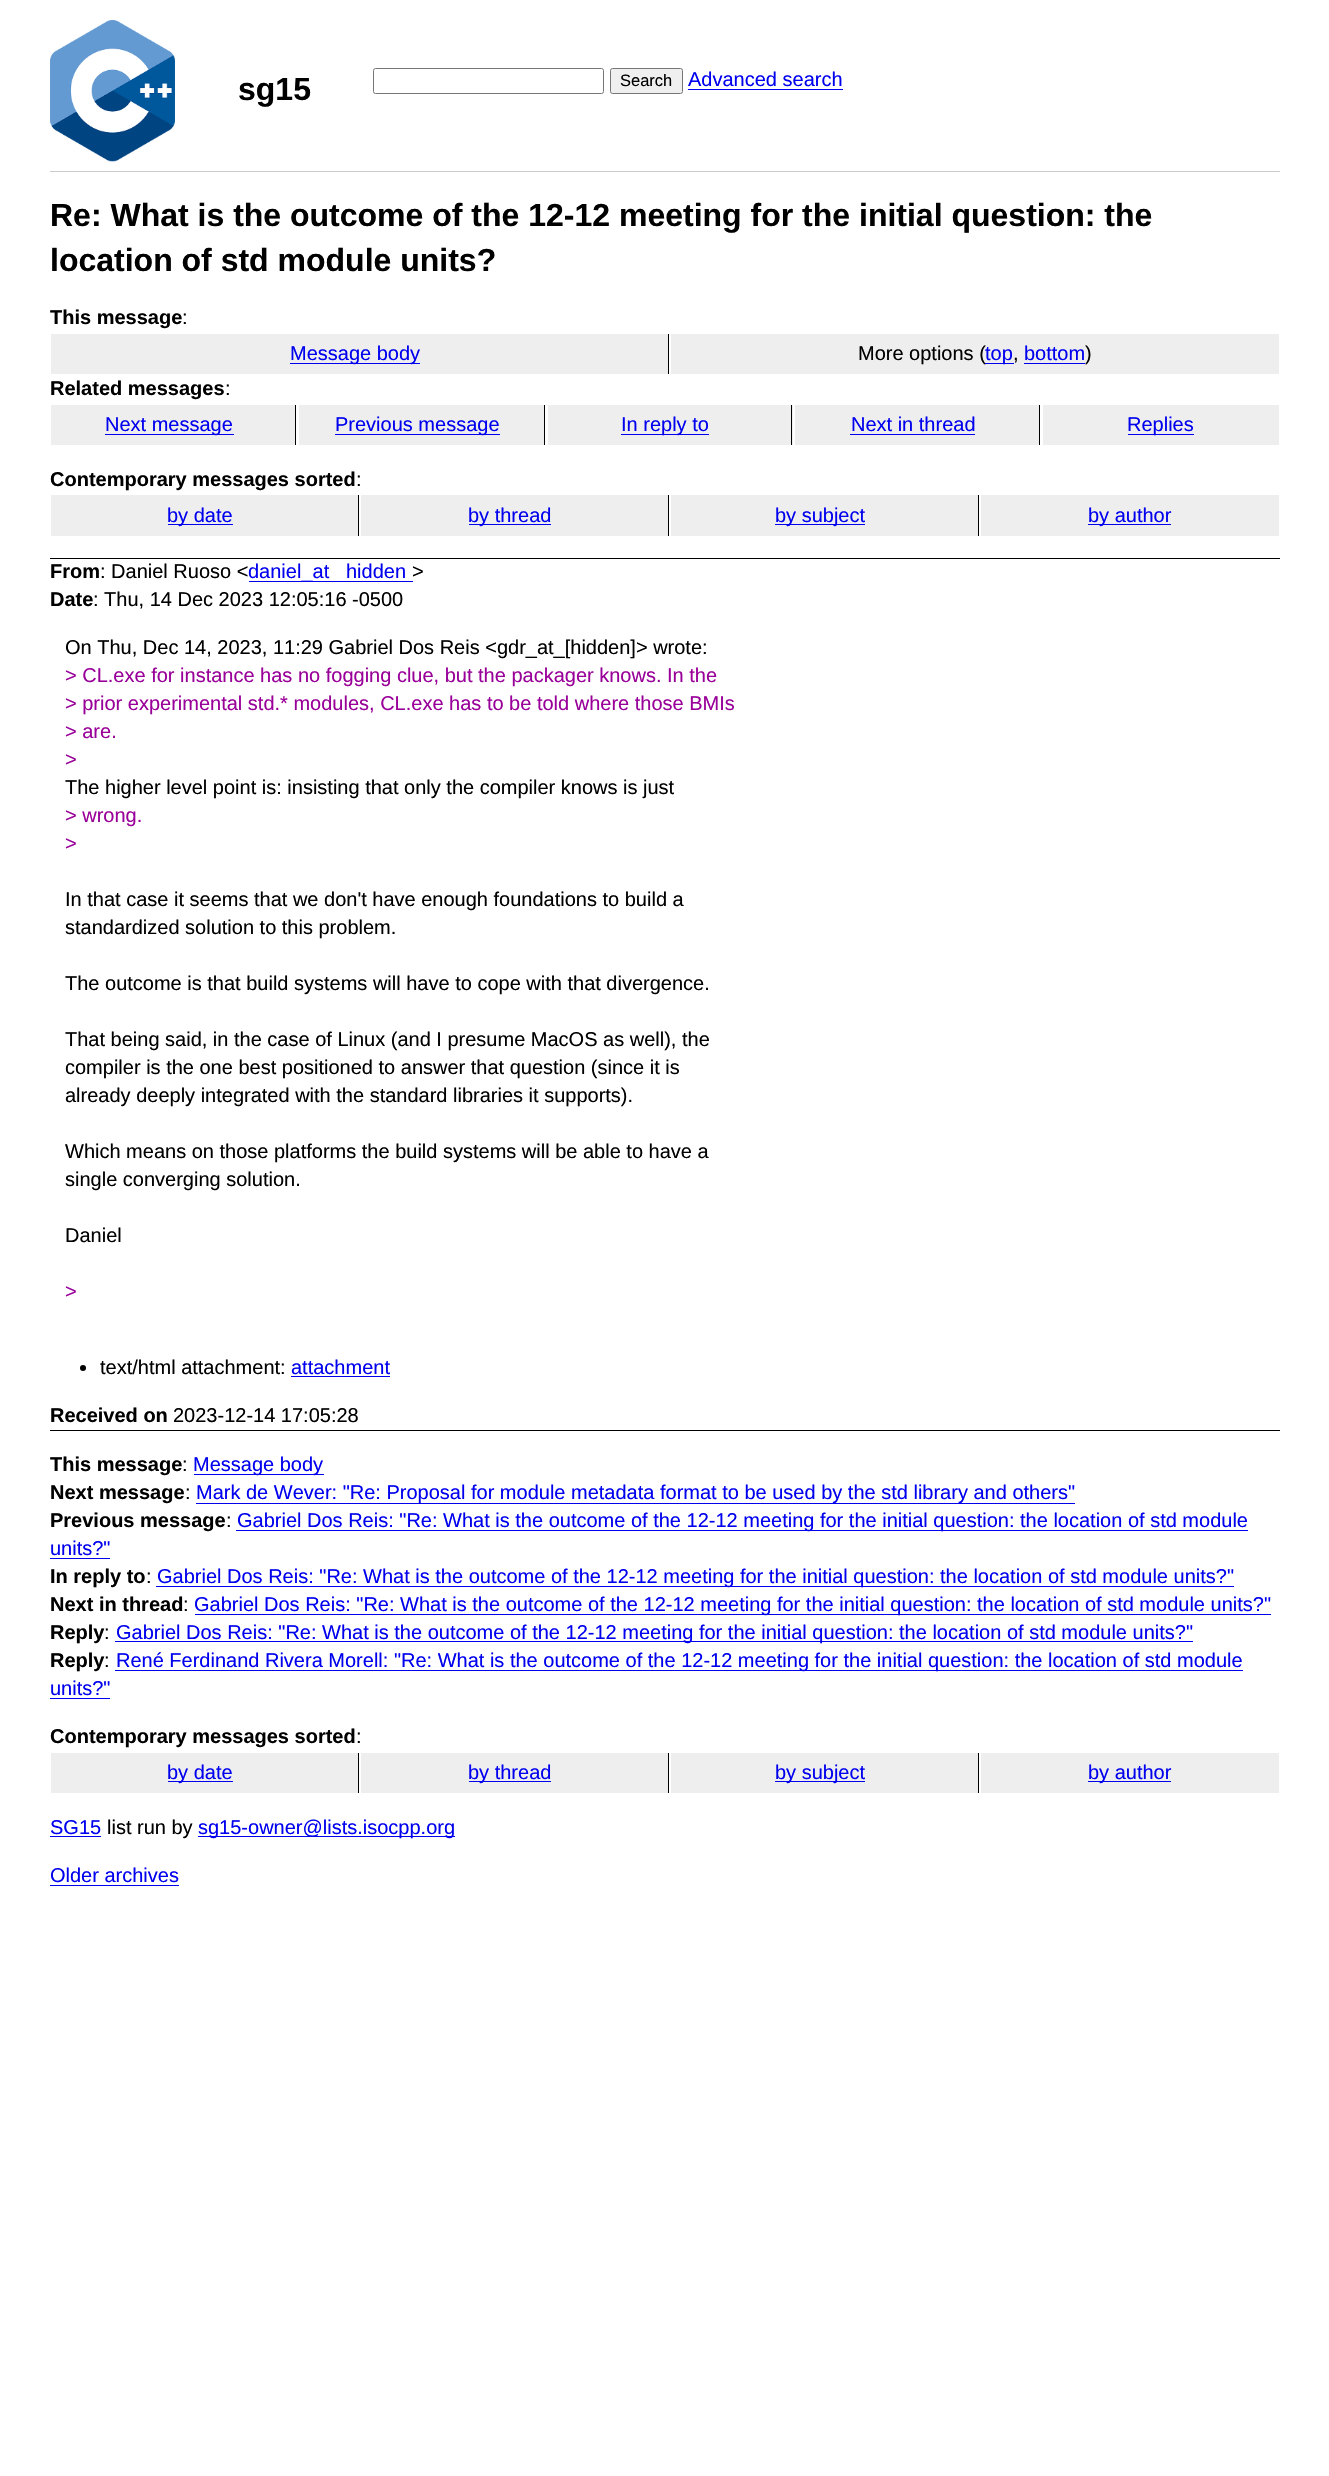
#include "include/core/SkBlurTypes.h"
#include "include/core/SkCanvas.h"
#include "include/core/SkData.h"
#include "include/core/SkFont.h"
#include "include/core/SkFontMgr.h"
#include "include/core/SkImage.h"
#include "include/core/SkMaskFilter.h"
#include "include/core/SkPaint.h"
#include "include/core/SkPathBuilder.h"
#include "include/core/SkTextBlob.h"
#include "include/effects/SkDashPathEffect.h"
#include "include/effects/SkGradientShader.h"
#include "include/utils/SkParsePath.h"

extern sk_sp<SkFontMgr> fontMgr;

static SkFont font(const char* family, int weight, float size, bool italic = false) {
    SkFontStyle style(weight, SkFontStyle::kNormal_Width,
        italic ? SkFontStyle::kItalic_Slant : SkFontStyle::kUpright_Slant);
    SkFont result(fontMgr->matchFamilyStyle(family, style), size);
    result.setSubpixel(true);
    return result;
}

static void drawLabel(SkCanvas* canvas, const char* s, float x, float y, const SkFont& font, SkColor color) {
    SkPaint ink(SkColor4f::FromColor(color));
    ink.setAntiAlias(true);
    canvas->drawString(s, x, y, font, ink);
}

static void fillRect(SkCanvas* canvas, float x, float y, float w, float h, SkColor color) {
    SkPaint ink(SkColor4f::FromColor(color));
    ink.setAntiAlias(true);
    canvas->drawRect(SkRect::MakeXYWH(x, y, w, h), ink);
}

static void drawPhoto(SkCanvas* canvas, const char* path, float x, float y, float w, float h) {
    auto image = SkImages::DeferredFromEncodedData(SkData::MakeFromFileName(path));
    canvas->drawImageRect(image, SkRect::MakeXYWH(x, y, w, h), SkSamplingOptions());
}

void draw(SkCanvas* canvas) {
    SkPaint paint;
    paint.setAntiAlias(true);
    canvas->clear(0xFFFFFFFF);
    drawPhoto(canvas, "assets/img1.png", 50, 20, 125, 142);
    SkFont font1 = font("Liberation Sans", 700, 32);
    drawLabel(canvas, "sg15", 238, 100, font1, 0xFF000000);
    paint.setStroke(true);
    paint.setStrokeWidth(1);
    paint.setColor(0xFF767676);
    canvas->drawRoundRect(SkRect::MakeXYWH(373.5f, 68.5f, 230, 25), 2, 2, paint);
    paint.setStroke(false);
    paint.setColor(0xFFEFEFEF);
    canvas->drawRoundRect(SkRect::MakeXYWH(610.5f, 68.5f, 72, 25), 2, 2, paint);
    paint.setStroke(true);
    paint.setColor(0xFF767676);
    canvas->drawRoundRect(SkRect::MakeXYWH(610.5f, 68.5f, 72, 25), 2, 2, paint);
    SkFont font2 = font("Liberation Sans", 400, 16.5f);
    drawLabel(canvas, "Search", 620, 86, font2, 0xFF000000);
    SkFont font3 = font("Liberation Sans", 400, 20);
    drawLabel(canvas, "Advanced search", 688, 86, font3, 0xFF0000EE);
    fillRect(canvas, 688, 89, 155, 1, 0xFF0000EE);
    fillRect(canvas, 50, 171, 1230, 1, 0xFFCCCCCC);
    drawLabel(canvas, "Re: What is the outcome of the 12-12 meeting for the initial question: the", 50, 226, font1, 0xFF000000);
    drawLabel(canvas, "location of std module units?", 50, 271, font1, 0xFF000000);
    SkFont font4 = font("Liberation Sans", 700, 20);
    drawLabel(canvas, "This message", 50, 324, font4, 0xFF000000);
    drawLabel(canvas, ":", 182, 324, font3, 0xFF000000);
    fillRect(canvas, 51, 334, 617, 40, 0xFFEEEEEE);
    fillRect(canvas, 668, 334, 1, 40, 0xFF000000);
    fillRect(canvas, 290, 363, 130, 1, 0xFF0000EE);
    drawLabel(canvas, "Message body", 290, 360, font3, 0xFF0000EE);
    fillRect(canvas, 671, 334, 608, 40, 0xFFEEEEEE);
    drawLabel(canvas, "More options (", 858, 360, font3, 0xFF000000);
    fillRect(canvas, 985, 363, 29, 1, 0xFF0000EE);
    drawLabel(canvas, "top", 985, 360, font3, 0xFF0000EE);
    drawLabel(canvas, ",", 1013, 360, font3, 0xFF000000);
    drawLabel(canvas, "bottom", 1024, 360, font3, 0xFF0000EE);
    fillRect(canvas, 1024, 363, 61, 1, 0xFF0000EE);
    drawLabel(canvas, ")", 1085, 360, font3, 0xFF000000);
    drawLabel(canvas, "Related messages", 50, 395, font4, 0xFF000000);
    drawLabel(canvas, ":", 225, 395, font3, 0xFF000000);
    fillRect(canvas, 51, 405, 244, 40, 0xFFEEEEEE);
    fillRect(canvas, 295, 405, 1, 40, 0xFF000000);
    fillRect(canvas, 105, 434, 129, 1, 0xFF0000EE);
    drawLabel(canvas, "Next message", 105, 431, font3, 0xFF0000EE);
    fillRect(canvas, 299, 405, 245, 40, 0xFFEEEEEE);
    fillRect(canvas, 544, 405, 1, 40, 0xFF000000);
    fillRect(canvas, 335, 434, 165, 1, 0xFF0000EE);
    drawLabel(canvas, "Previous message", 335, 431, font3, 0xFF0000EE);
    fillRect(canvas, 548, 405, 245, 40, 0xFFEEEEEE);
    fillRect(canvas, 791, 405, 1, 40, 0xFF000000);
    fillRect(canvas, 621, 434, 88, 1, 0xFF0000EE);
    drawLabel(canvas, "In reply to", 621, 431, font3, 0xFF0000EE);
    fillRect(canvas, 795, 405, 244, 40, 0xFFEEEEEE);
    fillRect(canvas, 1039, 405, 1, 40, 0xFF000000);
    drawLabel(canvas, "Next in thread", 851, 431, font3, 0xFF0000EE);
    fillRect(canvas, 850, 434, 125, 1, 0xFF0000EE);
    fillRect(canvas, 1043, 405, 236, 40, 0xFFEEEEEE);
    fillRect(canvas, 1128, 434, 66, 1, 0xFF0000EE);
    drawLabel(canvas, "Replies", 1127, 431, font3, 0xFF0000EE);
    drawLabel(canvas, "Contemporary messages sorted", 50, 486, font4, 0xFF000000);
    drawLabel(canvas, ":", 356, 486, font3, 0xFF000000);
    fillRect(canvas, 51, 495, 307, 41, 0xFFEEEEEE);
    fillRect(canvas, 358, 495, 1, 41, 0xFF000000);
    fillRect(canvas, 168, 524, 65, 1, 0xFF0000EE);
    drawLabel(canvas, "by date", 167, 522, font3, 0xFF0000EE);
    fillRect(canvas, 361, 495, 307, 41, 0xFFEEEEEE);
    fillRect(canvas, 668, 495, 1, 41, 0xFF000000);
    fillRect(canvas, 469, 524, 82, 1, 0xFF0000EE);
    drawLabel(canvas, "by thread", 468, 522, font3, 0xFF0000EE);
    fillRect(canvas, 671, 495, 307, 41, 0xFFEEEEEE);
    fillRect(canvas, 978, 495, 1, 41, 0xFF000000);
    fillRect(canvas, 775, 524, 90, 1, 0xFF0000EE);
    drawLabel(canvas, "by subject", 775, 522, font3, 0xFF0000EE);
    fillRect(canvas, 981, 495, 298, 41, 0xFFEEEEEE);
    fillRect(canvas, 1088, 524, 83, 1, 0xFF0000EE);
    drawLabel(canvas, "by author", 1088, 522, font3, 0xFF0000EE);
    fillRect(canvas, 50, 558, 1230, 1, 0xFF000000);
    fillRect(canvas, 50, 1430, 1230, 1, 0xFF000000);
    drawLabel(canvas, "From", 50, 578, font4, 0xFF000000);
    drawLabel(canvas, ": Daniel Ruoso <", 100, 578, font3, 0xFF000000);
    fillRect(canvas, 249, 581, 164, 1, 0xFF0000EE);
    drawLabel(canvas, "daniel_at", 248, 578, font3, 0xFF0000EE);
    drawLabel(canvas, "hidden", 346, 578, font3, 0xFF0000EE);
    drawLabel(canvas, ">", 412, 578, font3, 0xFF000000);
    drawLabel(canvas, "Date", 50, 606, font4, 0xFF000000);
    drawLabel(canvas, ": Thu, 14 Dec 2023 12:05:16 -0500", 93, 606, font3, 0xFF000000);
    drawLabel(canvas, "On Thu, Dec 14, 2023, 11:29 Gabriel Dos Reis <gdr_at_[hidden]> wrote:", 65, 654, font3, 0xFF000000);
    drawLabel(canvas, "> CL.exe for instance has no fogging clue, but the packager knows. In the", 65, 682, font3, 0xFF990099);
    drawLabel(canvas, "> prior experimental std.* modules, CL.exe has to be told where those BMIs", 65, 710, font3, 0xFF990099);
    drawLabel(canvas, "> are.", 65, 738, font3, 0xFF990099);
    drawLabel(canvas, ">", 65, 766, font3, 0xFF990099);
    drawLabel(canvas, "The higher level point is: insisting that only the compiler knows is just", 65, 794, font3, 0xFF000000);
    drawLabel(canvas, "> wrong.", 65, 822, font3, 0xFF990099);
    drawLabel(canvas, ">", 65, 850, font3, 0xFF990099);
    drawLabel(canvas, "In that case it seems that we don't have enough foundations to build a", 65, 906, font3, 0xFF000000);
    drawLabel(canvas, "standardized solution to this problem.", 65, 934, font3, 0xFF000000);
    drawLabel(canvas, "The outcome is that build systems will have to cope with that divergence.", 65, 990, font3, 0xFF000000);
    drawLabel(canvas, "That being said, in the case of Linux (and I presume MacOS as well), the", 65, 1046, font3, 0xFF000000);
    drawLabel(canvas, "compiler is the one best positioned to answer that question (since it is", 65, 1074, font3, 0xFF000000);
    drawLabel(canvas, "already deeply integrated with the standard libraries it supports).", 65, 1102, font3, 0xFF000000);
    drawLabel(canvas, "Which means on those platforms the build systems will be able to have a", 65, 1158, font3, 0xFF000000);
    drawLabel(canvas, "single converging solution.", 65, 1186, font3, 0xFF000000);
    drawLabel(canvas, "Daniel", 65, 1242, font3, 0xFF000000);
    drawLabel(canvas, ">", 65, 1298, font3, 0xFF990099);
    paint.setStroke(false);
    paint.setColor(0xFF000000);
    canvas->drawCircle(83, 1368, 3, paint);
    drawLabel(canvas, "text/html attachment:", 100, 1374, font3, 0xFF000000);
    drawLabel(canvas, "attachment", 291, 1374, font3, 0xFF0000EE);
    fillRect(canvas, 291, 1376, 99, 1, 0xFF0000EE);
    drawLabel(canvas, "Received on", 50, 1422, font4, 0xFF000000);
    drawLabel(canvas, "2023-12-14 17:05:28", 173, 1422, font3, 0xFF000000);
    drawLabel(canvas, "This message", 50, 1471, font4, 0xFF000000);
    drawLabel(canvas, ":", 182, 1471, font3, 0xFF000000);
    fillRect(canvas, 194, 1474, 130, 1, 0xFF0000EE);
    drawLabel(canvas, "Message body", 193, 1471, font3, 0xFF0000EE);
    drawLabel(canvas, "Next message", 50, 1499, font4, 0xFF000000);
    drawLabel(canvas, ":", 185, 1499, font3, 0xFF000000);
    fillRect(canvas, 196, 1503, 879, 1, 0xFF0000EE);
    drawLabel(canvas, "Mark de Wever: \"Re: Proposal for module metadata format to be used by the std library and others\"", 196, 1499, font3, 0xFF0000EE);
    drawLabel(canvas, "Previous message", 50, 1527, font4, 0xFF000000);
    drawLabel(canvas, ":", 226, 1527, font3, 0xFF000000);
    fillRect(canvas, 236, 1530, 1012, 1, 0xFF0000EE);
    drawLabel(canvas, "Gabriel Dos Reis: \"Re: What is the outcome of the 12-12 meeting for the initial question: the location of std module", 237, 1527, font3, 0xFF0000EE);
    drawLabel(canvas, "units?\"", 50, 1555, font3, 0xFF0000EE);
    fillRect(canvas, 50, 1558, 60, 1, 0xFF0000EE);
    drawLabel(canvas, "In reply to", 50, 1583, font4, 0xFF000000);
    drawLabel(canvas, ":", 146, 1583, font3, 0xFF000000);
    fillRect(canvas, 156, 1586, 1078, 1, 0xFF0000EE);
    drawLabel(canvas, "Gabriel Dos Reis: \"Re: What is the outcome of the 12-12 meeting for the initial question: the location of std module units?\"", 157, 1583, font3, 0xFF0000EE);
    drawLabel(canvas, "Next in thread", 50, 1611, font4, 0xFF000000);
    drawLabel(canvas, ":", 183, 1611, font3, 0xFF000000);
    fillRect(canvas, 195, 1614, 1076, 1, 0xFF0000EE);
    drawLabel(canvas, "Gabriel Dos Reis: \"Re: What is the outcome of the 12-12 meeting for the initial question: the location of std module units?\"", 194, 1611, font3, 0xFF0000EE);
    drawLabel(canvas, "Reply", 50, 1639, font4, 0xFF000000);
    drawLabel(canvas, ":", 104, 1639, font3, 0xFF000000);
    fillRect(canvas, 115, 1641, 1078, 1, 0xFF0000EE);
    drawLabel(canvas, "Gabriel Dos Reis: \"Re: What is the outcome of the 12-12 meeting for the initial question: the location of std module units?\"", 116, 1639, font3, 0xFF0000EE);
    drawLabel(canvas, "Reply", 50, 1667, font4, 0xFF000000);
    drawLabel(canvas, ":", 104, 1667, font3, 0xFF000000);
    fillRect(canvas, 115, 1670, 1128, 1, 0xFF0000EE);
    drawLabel(canvas, "René Ferdinand Rivera Morell: \"Re: What is the outcome of the 12-12 meeting for the initial question: the location of std module", 116, 1667, font3, 0xFF0000EE);
    drawLabel(canvas, "units?\"", 50, 1695, font3, 0xFF0000EE);
    fillRect(canvas, 50, 1698, 60, 1, 0xFF0000EE);
    drawLabel(canvas, "Contemporary messages sorted", 50, 1743, font4, 0xFF000000);
    drawLabel(canvas, ":", 356, 1743, font3, 0xFF000000);
    fillRect(canvas, 51, 1753, 307, 40, 0xFFEEEEEE);
    fillRect(canvas, 358, 1753, 1, 40, 0xFF000000);
    fillRect(canvas, 168, 1781, 65, 1, 0xFF0000EE);
    drawLabel(canvas, "by date", 167, 1779, font3, 0xFF0000EE);
    fillRect(canvas, 361, 1753, 307, 40, 0xFFEEEEEE);
    fillRect(canvas, 668, 1753, 1, 40, 0xFF000000);
    fillRect(canvas, 469, 1781, 82, 1, 0xFF0000EE);
    drawLabel(canvas, "by thread", 468, 1779, font3, 0xFF0000EE);
    fillRect(canvas, 671, 1753, 307, 40, 0xFFEEEEEE);
    fillRect(canvas, 978, 1753, 1, 40, 0xFF000000);
    fillRect(canvas, 775, 1781, 90, 1, 0xFF0000EE);
    drawLabel(canvas, "by subject", 775, 1779, font3, 0xFF0000EE);
    fillRect(canvas, 981, 1753, 298, 40, 0xFFEEEEEE);
    fillRect(canvas, 1088, 1781, 83, 1, 0xFF0000EE);
    drawLabel(canvas, "by author", 1088, 1779, font3, 0xFF0000EE);
    drawLabel(canvas, "SG15", 50, 1834, font3, 0xFF0000EE);
    fillRect(canvas, 50, 1836, 51, 1, 0xFF0000EE);
    drawLabel(canvas, "list run by", 107, 1834, font3, 0xFF000000);
    fillRect(canvas, 198, 1836, 257, 1, 0xFF0000EE);
    drawLabel(canvas, "sg15-owner@lists.isocpp.org", 198, 1834, font3, 0xFF0000EE);
    drawLabel(canvas, "Older archives", 50, 1882, font3, 0xFF0000EE);
    fillRect(canvas, 50, 1885, 129, 1, 0xFF0000EE);
}
